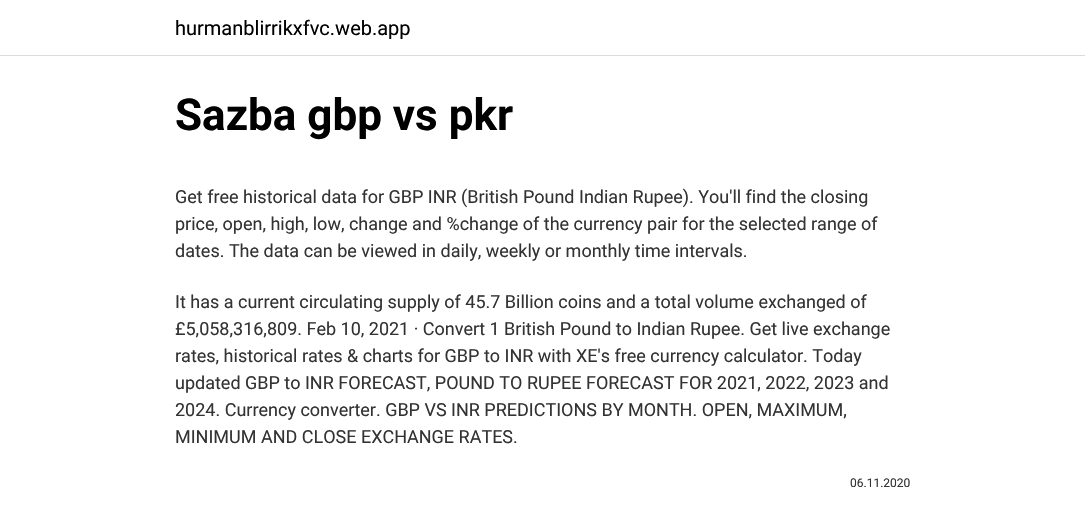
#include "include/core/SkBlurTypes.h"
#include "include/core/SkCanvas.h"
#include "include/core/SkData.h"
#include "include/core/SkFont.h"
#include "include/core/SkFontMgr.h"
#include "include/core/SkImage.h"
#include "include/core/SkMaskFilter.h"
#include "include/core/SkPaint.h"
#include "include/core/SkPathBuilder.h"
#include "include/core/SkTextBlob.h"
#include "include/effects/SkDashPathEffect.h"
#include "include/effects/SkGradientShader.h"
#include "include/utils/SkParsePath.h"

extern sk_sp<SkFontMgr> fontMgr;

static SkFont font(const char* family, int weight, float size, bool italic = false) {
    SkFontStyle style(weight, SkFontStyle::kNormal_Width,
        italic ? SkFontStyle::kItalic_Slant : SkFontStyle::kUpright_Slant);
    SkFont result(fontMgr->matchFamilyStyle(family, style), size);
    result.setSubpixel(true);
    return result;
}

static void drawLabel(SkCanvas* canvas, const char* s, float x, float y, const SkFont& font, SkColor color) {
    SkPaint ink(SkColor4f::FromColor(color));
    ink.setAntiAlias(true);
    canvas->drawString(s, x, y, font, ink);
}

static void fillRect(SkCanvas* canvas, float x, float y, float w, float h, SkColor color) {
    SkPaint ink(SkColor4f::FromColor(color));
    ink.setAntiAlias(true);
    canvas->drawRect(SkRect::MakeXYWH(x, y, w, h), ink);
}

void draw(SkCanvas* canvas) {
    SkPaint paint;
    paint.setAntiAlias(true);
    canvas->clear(0xFFFFFFFF);
    fillRect(canvas, 0, 55, 1085, 1, 0xFFDBDBDB);
    SkFont font1 = font("Roboto", 400, 20);
    drawLabel(canvas, "hurmanblirrikxfvc.web.app", 175, 35, font1, 0xFF000000);
    SkFont font2 = font("Roboto", 700, 44);
    drawLabel(canvas, "Sazba gbp vs pkr", 175, 130, font2, 0xFF000000);
    SkFont font3 = font("Roboto", 400, 18);
    drawLabel(canvas, "Get free historical data for GBP INR (British Pound Indian Rupee). You'll find the closing", 175, 203, font3, 0xFF333333);
    drawLabel(canvas, "price, open, high, low, change and %change of the currency pair for the selected range of", 175, 230, font3, 0xFF333333);
    drawLabel(canvas, "dates. The data can be viewed in daily, weekly or monthly time intervals.", 175, 257, font3, 0xFF333333);
    drawLabel(canvas, "It has a current circulating supply of 45.7 Billion coins and a total volume exchanged of", 175, 308, font3, 0xFF333333);
    drawLabel(canvas, "£5,058,316,809. Feb 10, 2021 · Convert 1 British Pound to Indian Rupee. Get live exchange", 175, 335, font3, 0xFF333333);
    drawLabel(canvas, "rates, historical rates & charts for GBP to INR with XE's free currency calculator. Today", 175, 362, font3, 0xFF333333);
    drawLabel(canvas, "updated GBP to INR FORECAST, POUND TO RUPEE FORECAST FOR 2021, 2022, 2023 and", 175, 389, font3, 0xFF333333);
    drawLabel(canvas, "2024. Currency converter. GBP VS INR PREDICTIONS BY MONTH. OPEN, MAXIMUM,", 175, 416, font3, 0xFF333333);
    drawLabel(canvas, "MINIMUM AND CLOSE EXCHANGE RATES.", 175, 443, font3, 0xFF333333);
    SkFont font4 = font("Roboto", 400, 12);
    drawLabel(canvas, "06.11.2020", 850, 487, font4, 0xFF333333);
}
